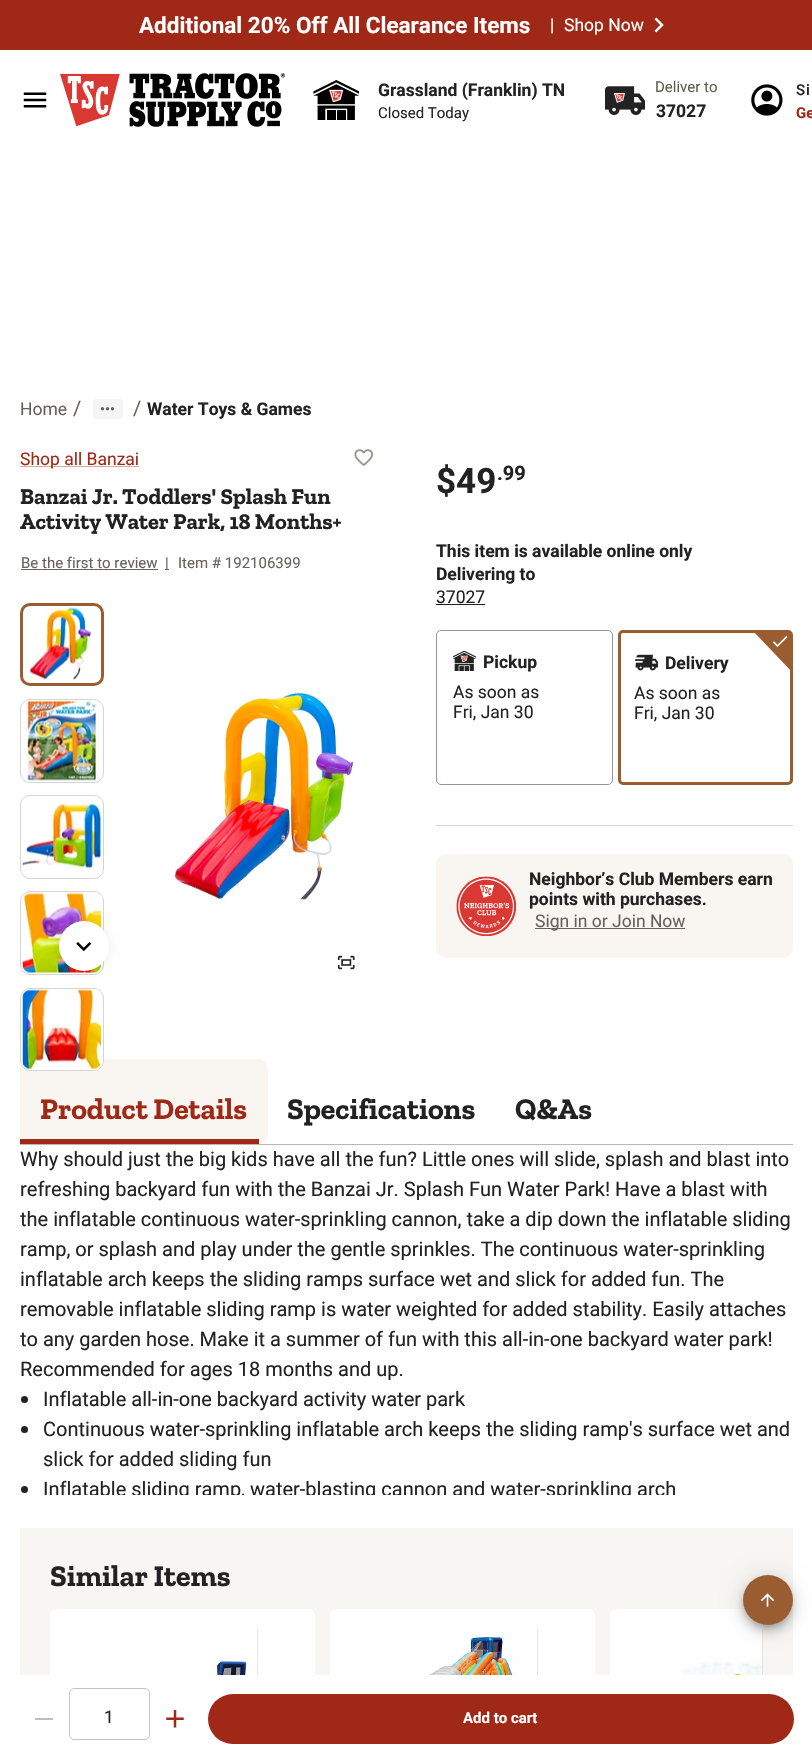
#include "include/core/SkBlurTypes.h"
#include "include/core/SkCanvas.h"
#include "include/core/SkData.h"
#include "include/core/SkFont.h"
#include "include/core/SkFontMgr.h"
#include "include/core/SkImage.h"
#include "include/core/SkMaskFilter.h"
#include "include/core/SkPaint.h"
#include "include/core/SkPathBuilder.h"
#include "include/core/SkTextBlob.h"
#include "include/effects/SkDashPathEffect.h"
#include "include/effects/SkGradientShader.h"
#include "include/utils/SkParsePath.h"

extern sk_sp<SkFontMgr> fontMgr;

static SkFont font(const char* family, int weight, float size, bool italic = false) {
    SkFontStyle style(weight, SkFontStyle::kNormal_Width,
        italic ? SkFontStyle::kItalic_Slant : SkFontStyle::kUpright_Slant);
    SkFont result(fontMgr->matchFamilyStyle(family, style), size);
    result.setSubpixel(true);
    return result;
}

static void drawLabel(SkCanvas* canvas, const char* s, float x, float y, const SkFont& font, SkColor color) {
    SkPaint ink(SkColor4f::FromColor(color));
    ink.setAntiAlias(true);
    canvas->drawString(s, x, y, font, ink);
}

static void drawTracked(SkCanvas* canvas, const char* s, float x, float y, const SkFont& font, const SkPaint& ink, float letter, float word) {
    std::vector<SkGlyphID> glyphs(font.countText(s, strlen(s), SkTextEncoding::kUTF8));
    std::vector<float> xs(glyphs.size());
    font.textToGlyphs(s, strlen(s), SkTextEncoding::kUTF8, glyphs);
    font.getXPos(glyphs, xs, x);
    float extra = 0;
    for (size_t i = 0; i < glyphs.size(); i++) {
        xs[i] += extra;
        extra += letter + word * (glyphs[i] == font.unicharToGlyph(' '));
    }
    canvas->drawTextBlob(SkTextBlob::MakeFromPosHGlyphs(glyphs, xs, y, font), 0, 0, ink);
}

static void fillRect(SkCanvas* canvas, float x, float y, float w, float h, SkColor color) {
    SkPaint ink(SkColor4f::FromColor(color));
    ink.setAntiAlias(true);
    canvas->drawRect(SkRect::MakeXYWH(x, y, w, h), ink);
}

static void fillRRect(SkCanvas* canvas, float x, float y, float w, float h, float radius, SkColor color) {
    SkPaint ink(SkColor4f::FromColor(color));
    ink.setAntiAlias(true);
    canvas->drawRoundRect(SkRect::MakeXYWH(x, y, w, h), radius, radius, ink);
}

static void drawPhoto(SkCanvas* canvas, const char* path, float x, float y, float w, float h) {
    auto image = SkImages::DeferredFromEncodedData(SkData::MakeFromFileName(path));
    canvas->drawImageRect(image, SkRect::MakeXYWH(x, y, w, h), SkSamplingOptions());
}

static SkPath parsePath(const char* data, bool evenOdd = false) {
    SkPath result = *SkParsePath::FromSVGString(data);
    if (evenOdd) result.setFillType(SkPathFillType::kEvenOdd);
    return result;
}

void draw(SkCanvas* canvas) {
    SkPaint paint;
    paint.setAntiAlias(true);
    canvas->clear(0xFFFFFFFF);
    fillRect(canvas, 0, 0, 812, 50, 0xFFA02817);
    SkFont font1 = font("Roboto", 700, 22.5f);
    drawLabel(canvas, "Additional 20% Off All Clearance Items", 139, 33, font1, 0xFFFFFFFF);
    SkFont font2 = font("Roboto", 400, 17.5f);
    drawLabel(canvas, "|", 550, 31, font2, 0xFFFFFFFF);
    drawLabel(canvas, "Shop Now", 564, 31, font2, 0xFFFFFFFF);
    drawPhoto(canvas, "assets/img1.png", 654, 17, 10, 16);
    drawPhoto(canvas, "assets/img2.png", 23, 92, 24, 16);
    drawPhoto(canvas, "assets/img3.png", 60, 73, 225, 54);
    drawPhoto(canvas, "assets/img4.png", 313, 80, 46, 40);
    SkFont font3 = font("Roboto", 700, 17.5f);
    drawLabel(canvas, "Grassland (Franklin) TN", 378, 96, font3, 0xFF222222);
    SkFont font4 = font("Roboto", 400, 15);
    drawLabel(canvas, "Closed Today", 378, 118, font4, 0xFF222222);
    drawPhoto(canvas, "assets/img5.png", 605, 86, 40, 29);
    drawLabel(canvas, "Deliver to", 655, 92, font4, 0xFF576446);
    drawLabel(canvas, "37027", 656, 117, font3, 0xFF222222);
    drawPhoto(canvas, "assets/img6.png", 751, 84, 32, 32);
    SkFont font5 = font("Roboto", 500, 15);
    paint.setColor(0xFF222222);
    drawTracked(canvas, "Si", 796, 95, font5, paint, 1, 0);
    SkFont font6 = font("Roboto", 700, 15);
    drawLabel(canvas, "Ge", 796, 118, font6, 0xFFA02817);
    drawLabel(canvas, "Home", 20, 415, font2, 0xFF68615A);
    SkFont font7 = font("Roboto", 400, 20);
    drawLabel(canvas, "/", 73, 415, font7, 0xFF68615A);
    fillRRect(canvas, 93, 399, 30, 20, 2.5f, 0xFFF5F5F5);
    drawPhoto(canvas, "assets/img7.png", 100, 407, 15, 4);
    drawLabel(canvas, "/", 133, 415, font7, 0xFF68615A);
    drawLabel(canvas, "Water Toys & Games", 147, 415, font3, 0xFF222222);
    fillRect(canvas, 20, 466, 119, 1, 0xFFD9A9A2);
    drawLabel(canvas, "Shop all Banzai", 20, 465, font2, 0xFFA02817);
    drawPhoto(canvas, "assets/img8.png", 354, 449, 20, 17);
    SkFont font8 = font("Zilla Slab", 700, 22.5f);
    drawLabel(canvas, "Banzai Jr. Toddlers' Splash Fun", 20, 504, font8, 0xFF222222);
    drawLabel(canvas, "Activity Water Park, 18 Months+", 20, 529, font8, 0xFF222222);
    drawLabel(canvas, "Be the first to review", 21, 568, font4, 0xFF68615A);
    fillRect(canvas, 21, 569, 137, 1, 0xFF68615A);
    fillRect(canvas, 165, 569, 4, 1, 0xFF68615A);
    drawLabel(canvas, "|", 165, 568, font4, 0xFF68615A);
    drawLabel(canvas, "Item # 192106399", 178, 568, font4, 0xFF68615A);
    paint.setStroke(true);
    paint.setStrokeWidth(3);
    paint.setColor(0xFF995D31);
    canvas->drawRoundRect(SkRect::MakeXYWH(21.5f, 604.5f, 81, 80), 8.5f, 8.5f, paint);
    drawPhoto(canvas, "assets/img9.png", 25, 607, 67, 73);
    paint.setStrokeWidth(1);
    paint.setColor(0xFFD6D5D5);
    canvas->drawRoundRect(SkRect::MakeXYWH(20.5f, 699.5f, 83, 83), 9.5f, 9.5f, paint);
    drawPhoto(canvas, "assets/img10.png", 23, 700, 76, 81);
    canvas->drawRoundRect(SkRect::MakeXYWH(20.5f, 795.5f, 83, 83), 9.5f, 9.5f, paint);
    drawPhoto(canvas, "assets/img11.png", 22, 803, 80, 66);
    canvas->drawRoundRect(SkRect::MakeXYWH(20.5f, 891.5f, 83, 83), 9.5f, 9.5f, paint);
    drawPhoto(canvas, "assets/img12.png", 22, 893, 80, 80);
    fillRRect(canvas, 20, 1059, 248, 85, 10, 0xFFF9F6F2);
    paint.setStroke(false);
    paint.setColor(0xFFFFFFFF);
    canvas->drawRoundRect(SkRect::MakeXYWH(20.5f, 988.5f, 83, 82), 9.5f, 9.5f, paint);
    paint.setStroke(true);
    paint.setColor(0xFFD6D5D5);
    canvas->drawRoundRect(SkRect::MakeXYWH(20.5f, 988.5f, 83, 82), 9.5f, 9.5f, paint);
    drawPhoto(canvas, "assets/img13.png", 22, 989, 80, 81);
    paint.setStroke(false);
    paint.setColor(0x0D000000);
    paint.setMaskFilter(SkMaskFilter::MakeBlur(kNormal_SkBlurStyle, 5));
    canvas->drawRoundRect(SkRect::MakeXYWH(56, 919, 55, 55), 27.5f, 27.5f, paint);
    paint.setMaskFilter(nullptr);
    paint.setColor(0xFFFFFFFF);
    canvas->drawCircle(84, 946, 25, paint);
    drawPhoto(canvas, "assets/img14.png", 76, 942, 16, 10);
    drawPhoto(canvas, "assets/img15.png", 174, 692, 180, 208);
    drawPhoto(canvas, "assets/img16.png", 337, 955, 18, 15);
    SkFont font9 = font("Roboto", 700, 35);
    drawLabel(canvas, "$49", 436, 493, font9, 0xFF222222);
    SkFont font10 = font("Roboto", 700, 20);
    drawLabel(canvas, ".99", 497, 480, font10, 0xFF222222);
    drawLabel(canvas, "This item is available online only", 436, 557, font3, 0xFF222222);
    drawLabel(canvas, "Delivering to", 436, 580, font3, 0xFF222222);
    drawLabel(canvas, "37027", 436, 603, font2, 0xFF222222);
    fillRect(canvas, 436, 604, 49, 1, 0xFF212121);
    paint.setStroke(true);
    paint.setColor(0xFF9A9590);
    canvas->drawRoundRect(SkRect::MakeXYWH(436.5f, 630.5f, 176, 154), 4.5f, 4.5f, paint);
    drawPhoto(canvas, "assets/img17.png", 453, 651, 23, 20);
    drawLabel(canvas, "Pickup", 483, 668, font3, 0xFF222222);
    drawLabel(canvas, "As soon as", 453, 698, font2, 0xFF222222);
    drawLabel(canvas, "Fri, Jan 30", 453, 718, font2, 0xFF222222);
    paint.setStrokeWidth(3);
    paint.setColor(0xFF9A5D31);
    canvas->drawRoundRect(SkRect::MakeXYWH(619.5f, 631.5f, 172, 152), 3.5f, 3.5f, paint);
    canvas->save();
    canvas->clipRect(SkRect::MakeXYWH(753, 630, 40, 40));
    paint.setStroke(false);
    canvas->drawPath(parsePath("M793 673V645C793 629 788 630 773 630H752Z", true), paint);
    canvas->restore();
    drawPhoto(canvas, "assets/img18.png", 772, 636, 16, 11);
    drawPhoto(canvas, "assets/img19.png", 635, 654, 23, 17);
    drawLabel(canvas, "Delivery", 665, 669, font3, 0xFF222222);
    drawLabel(canvas, "As soon as", 634, 699, font2, 0xFF222222);
    drawLabel(canvas, "Fri, Jan 30", 634, 719, font2, 0xFF222222);
    fillRect(canvas, 436, 825, 357, 1, 0xFFD5D4D3);
    fillRRect(canvas, 436, 854, 357, 104, 10, 0xFFF9F6F2);
    drawPhoto(canvas, "assets/img20.png", 456, 876, 60, 60);
    drawLabel(canvas, "Neighbor’s Club Members earn", 529, 885, font3, 0xFF222222);
    drawLabel(canvas, "points with purchases.", 529, 905, font3, 0xFF222222);
    fillRect(canvas, 535, 928, 150, 1, 0xFF68615A);
    drawLabel(canvas, "Sign in or Join Now", 535, 927, font2, 0xFF68615A);
    fillRect(canvas, 20, 1528, 773, 147, 0xFFF8F6F2);
    fillRRect(canvas, 50, 1609, 265, 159, 6, 0xFFFFFFFF);
    fillRect(canvas, 35, 1718, 18, 2, 0xFFBDBDBD);
    paint.setStroke(true);
    paint.setStrokeWidth(1);
    paint.setColor(0xFFC4C4C4);
    canvas->drawRoundRect(SkRect::MakeXYWH(69.5f, 1688.5f, 80, 51), 4.5f, 4.5f, paint);
    drawLabel(canvas, "1", 104, 1723, font2, 0xFF222222);
    drawPhoto(canvas, "assets/img21.png", 166, 1710, 18, 18);
    fillRRect(canvas, 330, 1609, 265, 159, 6, 0xFFFFFFFF);
    paint.setStroke(false);
    paint.setColor(0xFFFFFFFF);
    canvas->drawPath(parsePath("M616 1609H763V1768H616C612.5 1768 610 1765.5 610 1762V1615C610 1611.5 612.5 1609 616 1609Z"), paint);
    fillRRect(canvas, 208, 1694, 586, 50, 25, 0xFFA02817);
    drawLabel(canvas, "Add to cart", 463, 1723, font6, 0xFFFFFFFF);
    fillRect(canvas, 20, 1144, 773, 1, 0xFFBCB7B2);
    SkFont font11 = font("Zilla Slab", 700, 30);
    drawLabel(canvas, "Product Details", 40, 1119, font11, 0xFFA02817);
    drawLabel(canvas, "Specifications", 287, 1119, font11, 0xFF222222);
    drawLabel(canvas, "Q&As", 515, 1119, font11, 0xFF222222);
    fillRect(canvas, 20, 1139, 239, 5, 0xFFA02817);
    drawLabel(canvas, "Why should just the big kids have all the fun? Little ones will slide, splash and blast into", 20, 1166, font7, 0xFF222222);
    drawLabel(canvas, "refreshing backyard fun with the Banzai Jr. Splash Fun Water Park! Have a blast with", 20, 1196, font7, 0xFF222222);
    drawLabel(canvas, "the inflatable continuous water-sprinkling cannon, take a dip down the inflatable sliding", 20, 1226, font7, 0xFF222222);
    drawLabel(canvas, "ramp, or splash and play under the gentle sprinkles. The continuous water-sprinkling", 20, 1256, font7, 0xFF222222);
    drawLabel(canvas, "inflatable arch keeps the sliding ramps surface wet and slick for added fun. The", 20, 1286, font7, 0xFF222222);
    drawLabel(canvas, "removable inflatable sliding ramp is water weighted for added stability. Easily attaches", 20, 1316, font7, 0xFF222222);
    drawLabel(canvas, "to any garden hose. Make it a summer of fun with this all-in-one backyard water park!", 20, 1346, font7, 0xFF222222);
    drawLabel(canvas, "Recommended for ages 18 months and up.", 20, 1376, font7, 0xFF222222);
    paint.setColor(0xFF222222);
    canvas->drawCircle(24.5f, 1399.5f, 3.5f, paint);
    drawLabel(canvas, "Inflatable all-in-one backyard activity water park", 43, 1406, font7, 0xFF222222);
    canvas->drawCircle(24.5f, 1429.5f, 3.5f, paint);
    drawLabel(canvas, "Continuous water-sprinkling inflatable arch keeps the sliding ramp's surface wet and", 43, 1436, font7, 0xFF222222);
    drawLabel(canvas, "slick for added sliding fun", 43, 1466, font7, 0xFF222222);
    canvas->drawCircle(24.5f, 1489.5f, 3.5f, paint);
    canvas->save();
    canvas->clipRect(SkRect::MakeXYWH(20, 1145, 773, 350));
    drawLabel(canvas, "Inflatable sliding ramp, water-blasting cannon and water-sprinkling arch", 43, 1496, font7, 0xFF222222);
    canvas->restore();
    drawLabel(canvas, "Similar Items", 50, 1586, font11, 0xFF222222);
    fillRect(canvas, 257, 1629, 1, 46, 0xFFCCCCCC);
    drawPhoto(canvas, "assets/img22.png", 107, 1629, 151, 46);
    fillRect(canvas, 537, 1629, 1, 46, 0xFFCCCCCC);
    drawPhoto(canvas, "assets/img23.png", 388, 1629, 150, 46);
    fillRect(canvas, 762, 1629, 1, 46, 0xFFCCCCCC);
    drawPhoto(canvas, "assets/img24.png", 668, 1629, 95, 46);
    paint.setColor(0x1F000000);
    paint.setMaskFilter(SkMaskFilter::MakeBlur(kNormal_SkBlurStyle, 11));
    canvas->drawRoundRect(SkRect::MakeXYWH(743, 1576, 50, 50), 25, 25, paint);
    paint.setMaskFilter(nullptr);
    paint.setColor(0x24000000);
    paint.setMaskFilter(SkMaskFilter::MakeBlur(kNormal_SkBlurStyle, 6));
    canvas->drawRoundRect(SkRect::MakeXYWH(743, 1583, 50, 50), 25, 25, paint);
    paint.setMaskFilter(nullptr);
    paint.setColor(0x33000000);
    paint.setMaskFilter(SkMaskFilter::MakeBlur(kNormal_SkBlurStyle, 3));
    canvas->drawRoundRect(SkRect::MakeXYWH(744, 1580, 47, 48), 23.5f, 23.5f, paint);
    paint.setMaskFilter(nullptr);
    paint.setColor(0xFF9A5D31);
    canvas->drawCircle(768, 1600, 25, paint);
    drawPhoto(canvas, "assets/img25.png", 761, 1593, 13, 14);
}
